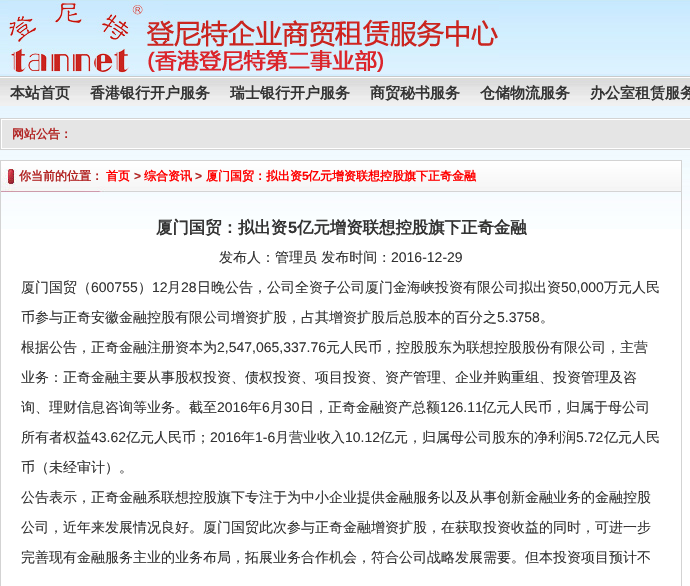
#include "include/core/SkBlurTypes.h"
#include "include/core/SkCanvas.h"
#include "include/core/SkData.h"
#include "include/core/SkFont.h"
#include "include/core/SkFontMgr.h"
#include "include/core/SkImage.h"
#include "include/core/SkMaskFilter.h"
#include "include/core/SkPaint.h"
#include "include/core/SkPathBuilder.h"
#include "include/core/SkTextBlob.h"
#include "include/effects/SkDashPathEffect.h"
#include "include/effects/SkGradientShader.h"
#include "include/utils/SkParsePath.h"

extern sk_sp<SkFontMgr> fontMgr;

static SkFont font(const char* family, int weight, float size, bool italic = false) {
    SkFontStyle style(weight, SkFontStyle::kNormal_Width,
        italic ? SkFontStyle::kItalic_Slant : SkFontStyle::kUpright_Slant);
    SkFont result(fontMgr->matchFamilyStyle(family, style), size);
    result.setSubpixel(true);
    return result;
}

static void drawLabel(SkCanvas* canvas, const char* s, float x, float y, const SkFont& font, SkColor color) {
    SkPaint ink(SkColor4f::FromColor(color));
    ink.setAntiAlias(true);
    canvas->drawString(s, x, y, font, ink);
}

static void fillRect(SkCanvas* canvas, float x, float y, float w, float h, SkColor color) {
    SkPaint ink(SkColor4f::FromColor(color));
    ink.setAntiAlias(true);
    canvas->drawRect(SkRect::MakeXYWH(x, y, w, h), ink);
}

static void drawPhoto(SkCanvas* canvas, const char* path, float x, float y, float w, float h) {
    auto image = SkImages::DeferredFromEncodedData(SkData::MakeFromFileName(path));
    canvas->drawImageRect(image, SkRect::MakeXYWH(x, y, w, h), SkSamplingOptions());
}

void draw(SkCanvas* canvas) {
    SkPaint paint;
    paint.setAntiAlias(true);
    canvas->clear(0xFFFFFFFF);
    drawPhoto(canvas, "assets/img1.png", 0, 0, 690, 229);
    drawPhoto(canvas, "assets/img2.png", 0, 0, 499, 73);
    drawPhoto(canvas, "assets/img3.png", 0, 74, 690, 32);
    SkFont font1 = font("WenQuanYi Zen Hei", 700, 15);
    drawLabel(canvas, "本站首页", 10, 98, font1, 0xFF333333);
    drawLabel(canvas, "香港银行开户服务", 90, 98, font1, 0xFF333333);
    drawLabel(canvas, "瑞士银行开户服务", 230, 98, font1, 0xFF333333);
    drawLabel(canvas, "商贸秘书服务", 370, 98, font1, 0xFF333333);
    drawLabel(canvas, "仓储物流服务", 480, 98, font1, 0xFF333333);
    drawLabel(canvas, "办公室租赁服务", 590, 98, font1, 0xFF333333);
    paint.setColor(0xFFFFFFFF);
    canvas->drawRect(SkRect::MakeXYWH(0.5f, 118.5f, 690, 31), paint);
    paint.setStroke(true);
    paint.setStrokeWidth(1);
    paint.setColor(0xFFD3D3D3);
    canvas->drawRect(SkRect::MakeXYWH(0.5f, 118.5f, 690, 31), paint);
    fillRect(canvas, 2, 120, 688, 28, 0xFFE5E5E5);
    SkFont font2 = font("WenQuanYi Zen Hei", 700, 12);
    drawLabel(canvas, "网站公告：", 12, 138, font2, 0xFFB22524);
    canvas->drawRect(SkRect::MakeXYWH(0.5f, 160.5f, 681, 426), paint);
    drawPhoto(canvas, "assets/img4.png", 1, 161, 680, 31);
    drawLabel(canvas, "你当前的位置：", 19, 180, font2, 0xFFB22524);
    drawLabel(canvas, "首页", 106, 180, font2, 0xFFFF0000);
    SkFont font3 = font("Liberation Sans", 700, 12);
    drawLabel(canvas, ">", 134, 180, font3, 0xFFB22524);
    drawLabel(canvas, "综合资讯", 144, 180, font2, 0xFFFF0000);
    drawLabel(canvas, ">", 195, 180, font3, 0xFFB22524);
    drawLabel(canvas, "厦门国贸：拟出资", 206, 180, font2, 0xFFFF0000);
    drawLabel(canvas, "5", 302, 180, font3, 0xFFFF0000);
    drawLabel(canvas, "亿元增资联想控股旗下正奇金融", 308, 180, font2, 0xFFFF0000);
    SkFont font4 = font("WenQuanYi Zen Hei", 700, 16.4f);
    drawLabel(canvas, "厦门国贸：拟出资", 156, 233, font4, 0xFF333333);
    SkFont font5 = font("Liberation Sans", 700, 16.4f);
    drawLabel(canvas, "5", 288, 233, font5, 0xFF333333);
    drawLabel(canvas, "亿元增资联想控股旗下正奇金融", 297, 233, font4, 0xFF333333);
    SkFont font6 = font("WenQuanYi Zen Hei", 500, 14);
    drawLabel(canvas, "发布人：管理员 发布时间：", 219, 262, font6, 0xFF333333);
    SkFont font7 = font("Liberation Sans", 400, 14);
    drawLabel(canvas, "2016-12-29", 391, 262, font7, 0xFF333333);
    drawLabel(canvas, "厦门国贸（", 21, 292, font6, 0xFF333333);
    drawLabel(canvas, "600755", 91, 292, font7, 0xFF333333);
    drawLabel(canvas, "）", 138, 292, font6, 0xFF333333);
    drawLabel(canvas, "12", 152, 292, font7, 0xFF333333);
    drawLabel(canvas, "月", 167, 292, font6, 0xFF333333);
    drawLabel(canvas, "28", 181, 292, font7, 0xFF333333);
    drawLabel(canvas, "日晚公告，公司全资子公司厦门金海峡投资有限公司拟出资", 197, 292, font6, 0xFF333333);
    drawLabel(canvas, "50,000", 561, 292, font7, 0xFF333333);
    drawLabel(canvas, "万元人民", 604, 292, font6, 0xFF333333);
    drawLabel(canvas, "币参与正奇安徽金融控股有限公司增资扩股，占其增资扩股后总股本的百分之", 21, 322, font6, 0xFF333333);
    drawLabel(canvas, "5.3758", 497, 322, font7, 0xFF333333);
    drawLabel(canvas, "。", 540, 322, font6, 0xFF333333);
    drawLabel(canvas, "根据公告，正奇金融注册资本为", 21, 352, font6, 0xFF333333);
    drawLabel(canvas, "2,547,065,337.76", 217, 352, font7, 0xFF333333);
    drawLabel(canvas, "元人民币，控股股东为联想控股股份有限公司，主营", 326, 352, font6, 0xFF333333);
    drawLabel(canvas, "业务：正奇金融主要从事股权投资、债权投资、项目投资、资产管理、企业并购重组、投资管理及咨", 21, 382, font6, 0xFF333333);
    drawLabel(canvas, "询、理财信息咨询等业务。截至", 21, 412, font6, 0xFF333333);
    drawLabel(canvas, "2016", 217, 412, font7, 0xFF333333);
    drawLabel(canvas, "年", 248, 412, font6, 0xFF333333);
    drawLabel(canvas, "6", 262, 412, font7, 0xFF333333);
    drawLabel(canvas, "月", 270, 412, font6, 0xFF333333);
    drawLabel(canvas, "30", 284, 412, font7, 0xFF333333);
    drawLabel(canvas, "日，正奇金融资产总额", 300, 412, font6, 0xFF333333);
    drawLabel(canvas, "126.11", 440, 412, font7, 0xFF333333);
    drawLabel(canvas, "亿元人民币，归属于母公司", 482, 412, font6, 0xFF333333);
    drawLabel(canvas, "所有者权益", 21, 442, font6, 0xFF333333);
    drawLabel(canvas, "43.62", 91, 442, font7, 0xFF333333);
    drawLabel(canvas, "亿元人民币；", 126, 442, font6, 0xFF333333);
    drawLabel(canvas, "2016", 210, 442, font7, 0xFF333333);
    drawLabel(canvas, "年", 241, 442, font6, 0xFF333333);
    drawLabel(canvas, "1-6", 255, 442, font7, 0xFF333333);
    drawLabel(canvas, "月营业收入", 275, 442, font6, 0xFF333333);
    drawLabel(canvas, "10.12", 345, 442, font7, 0xFF333333);
    drawLabel(canvas, "亿元，归属母公司股东的净利润", 380, 442, font6, 0xFF333333);
    drawLabel(canvas, "5.72", 576, 442, font7, 0xFF333333);
    drawLabel(canvas, "亿元人民", 604, 442, font6, 0xFF333333);
    drawLabel(canvas, "币（未经审计）。", 21, 472, font6, 0xFF333333);
    drawLabel(canvas, "公告表示，正奇金融系联想控股旗下专注于为中小企业提供金融服务以及从事创新金融业务的金融控股", 21, 502, font6, 0xFF333333);
    drawLabel(canvas, "公司，近年来发展情况良好。厦门国贸此次参与正奇金融增资扩股，在获取投资收益的同时，可进一步", 21, 532, font6, 0xFF333333);
    drawLabel(canvas, "完善现有金融服务主业的业务布局，拓展业务合作机会，符合公司战略发展需要。但本投资项目预计不", 21, 562, font6, 0xFF333333);
}
